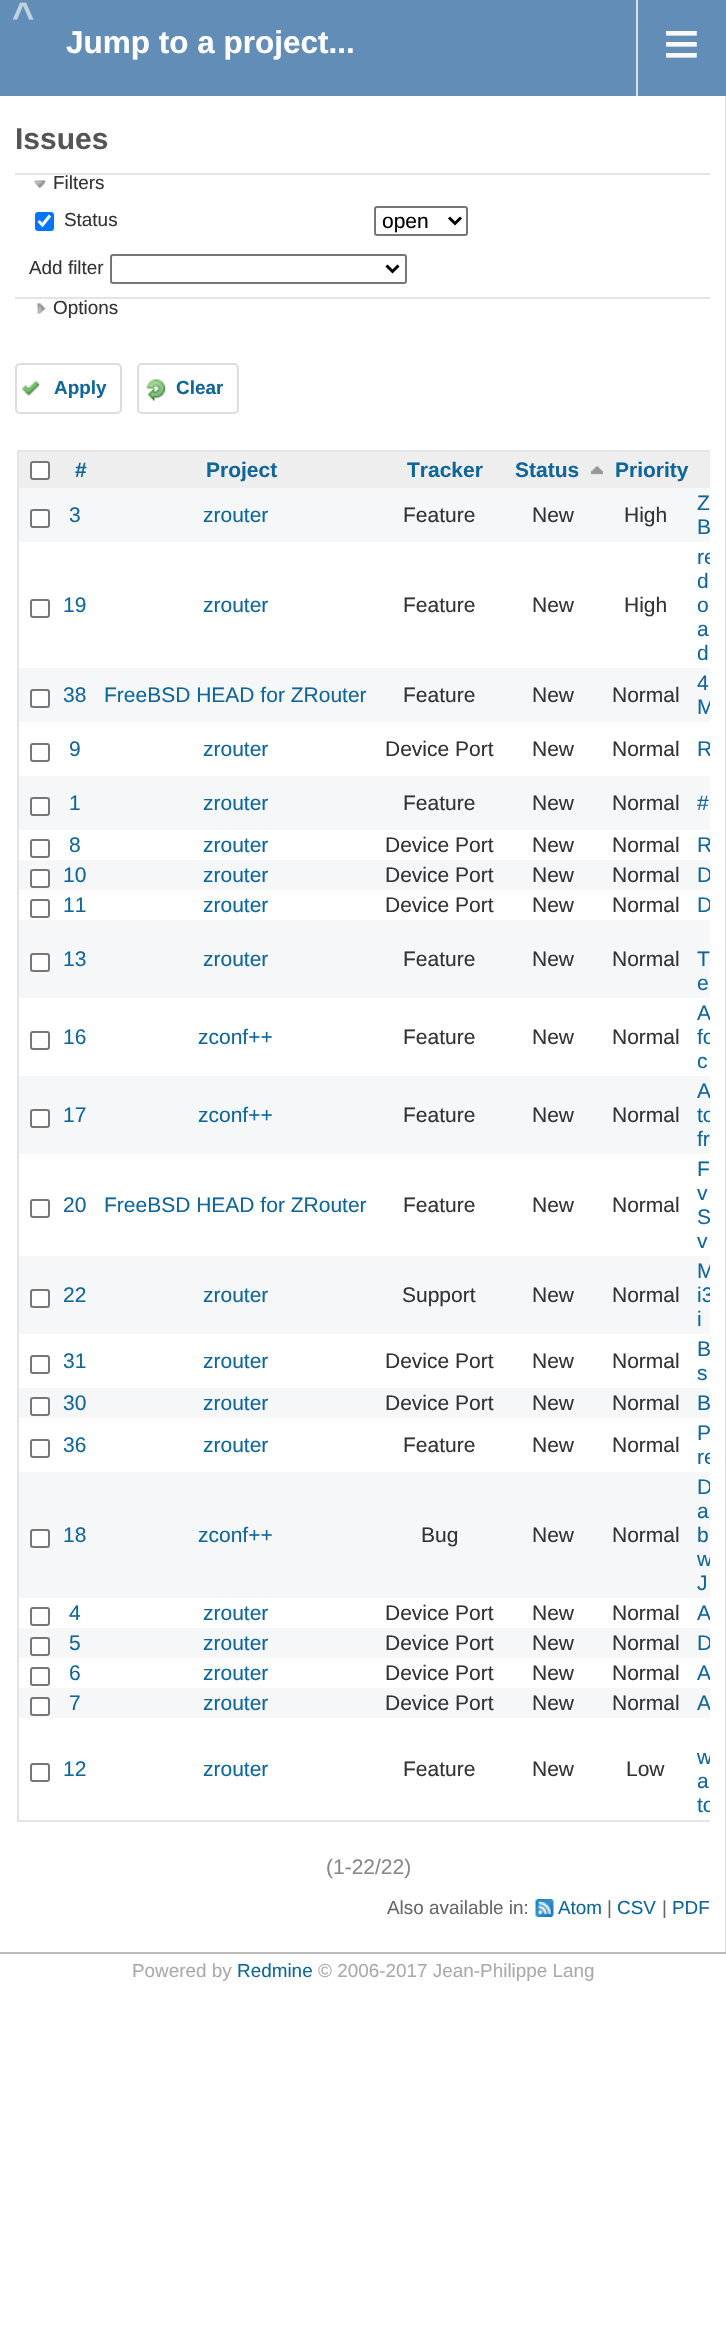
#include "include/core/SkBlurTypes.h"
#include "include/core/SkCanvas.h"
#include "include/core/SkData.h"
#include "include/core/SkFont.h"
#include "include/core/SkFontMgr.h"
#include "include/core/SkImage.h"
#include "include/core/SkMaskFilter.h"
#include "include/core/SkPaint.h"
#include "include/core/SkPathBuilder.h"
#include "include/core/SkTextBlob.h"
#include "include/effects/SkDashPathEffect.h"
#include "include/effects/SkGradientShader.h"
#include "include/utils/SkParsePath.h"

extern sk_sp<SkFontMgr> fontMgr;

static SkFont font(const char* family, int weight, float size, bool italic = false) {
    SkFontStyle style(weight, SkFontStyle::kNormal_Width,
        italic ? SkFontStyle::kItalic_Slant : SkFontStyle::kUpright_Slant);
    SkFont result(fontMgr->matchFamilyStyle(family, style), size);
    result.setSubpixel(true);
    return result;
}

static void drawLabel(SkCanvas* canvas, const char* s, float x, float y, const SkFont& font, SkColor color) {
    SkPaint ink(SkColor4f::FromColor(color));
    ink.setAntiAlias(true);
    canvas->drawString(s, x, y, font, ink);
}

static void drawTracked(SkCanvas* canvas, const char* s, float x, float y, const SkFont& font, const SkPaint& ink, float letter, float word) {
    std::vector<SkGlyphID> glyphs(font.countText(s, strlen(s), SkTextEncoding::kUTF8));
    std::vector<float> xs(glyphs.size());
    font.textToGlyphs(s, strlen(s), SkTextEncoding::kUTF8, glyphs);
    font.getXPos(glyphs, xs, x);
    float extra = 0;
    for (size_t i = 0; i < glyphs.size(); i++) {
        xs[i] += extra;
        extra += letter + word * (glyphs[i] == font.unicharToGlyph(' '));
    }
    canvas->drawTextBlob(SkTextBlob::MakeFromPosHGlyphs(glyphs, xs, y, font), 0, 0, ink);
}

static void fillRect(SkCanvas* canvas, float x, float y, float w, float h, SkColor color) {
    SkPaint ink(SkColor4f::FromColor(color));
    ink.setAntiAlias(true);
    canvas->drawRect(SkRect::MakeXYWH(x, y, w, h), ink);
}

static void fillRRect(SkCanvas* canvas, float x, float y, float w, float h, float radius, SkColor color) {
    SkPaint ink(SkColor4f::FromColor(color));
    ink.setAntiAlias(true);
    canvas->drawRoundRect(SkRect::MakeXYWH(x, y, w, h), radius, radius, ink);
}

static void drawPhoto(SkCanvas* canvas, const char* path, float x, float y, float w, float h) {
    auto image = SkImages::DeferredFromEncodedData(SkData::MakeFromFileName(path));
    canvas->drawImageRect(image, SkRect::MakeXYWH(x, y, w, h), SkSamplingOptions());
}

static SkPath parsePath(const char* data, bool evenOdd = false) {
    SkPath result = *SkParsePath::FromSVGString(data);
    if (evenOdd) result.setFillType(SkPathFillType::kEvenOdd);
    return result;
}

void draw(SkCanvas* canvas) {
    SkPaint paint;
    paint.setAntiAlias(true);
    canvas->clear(0xFFFFFFFF);
    fillRect(canvas, 0, 0, 726, 96, 0xFF628DB6);
    SkFont font1 = font("Liberation Sans", 700, 38);
    paint.setColor(0xFFC0D1E2);
    drawTracked(canvas, "^", 12, 29, font1, paint, 6, 0);
    SkFont font2 = font("Liberation Sans", 700, 31.5f);
    drawLabel(canvas, "Jump to a project...", 66, 53, font2, 0xFFFFFFFF);
    fillRect(canvas, 636, 0, 2, 96, 0xFFDDDDDD);
    SkFont font3 = font("Liberation Sans", 400, 63);
    drawLabel(canvas, "≡", 663, 65, font3, 0xFFF8F8F8);
    fillRect(canvas, 725, 96, 1, 1856, 0xFFDDDDDD);
    SkFont font4 = font("Liberation Sans", 700, 30);
    drawLabel(canvas, "Issues", 15, 149, font4, 0xFF555555);
    fillRect(canvas, 15, 173, 695, 2, 0xFFE4E4E4);
    drawPhoto(canvas, "assets/img1.png", 34, 180, 12, 9);
    SkFont font5 = font("Liberation Sans", 400, 18.9f);
    drawLabel(canvas, "Filters", 53, 189, font5, 0xFF333333);
    fillRRect(canvas, 35, 212, 19, 19, 3, 0xFF0075FF);
    paint.setStroke(true);
    paint.setStrokeWidth(3.1f);
    paint.setColor(0xFFFFFFFF);
    canvas->drawPath(parsePath("M38.5 221L42.5 225L50 215.5"), paint);
    drawLabel(canvas, "Status", 64, 226, font5, 0xFF333333);
    paint.setStrokeWidth(2);
    paint.setColor(0xFF767676);
    canvas->drawRoundRect(SkRect::MakeXYWH(375, 207, 92, 28), 2, 2, paint);
    paint.setStrokeWidth(3);
    paint.setColor(0xFF000000);
    canvas->drawPath(parsePath("M449 217.5L455 223.5L461 217.5"), paint);
    SkFont font6 = font("Liberation Sans", 400, 21);
    drawLabel(canvas, "open", 382, 228, font6, 0xFF000000);
    drawLabel(canvas, "Add filter", 29, 274, font5, 0xFF333333);
    paint.setStrokeWidth(2);
    paint.setColor(0xFF767676);
    canvas->drawRoundRect(SkRect::MakeXYWH(111, 255, 295, 28), 2, 2, paint);
    paint.setStrokeWidth(3);
    paint.setColor(0xFF000000);
    canvas->drawPath(parsePath("M386.5 265.5L392.5 271.5L398.5 265.5"), paint);
    fillRect(canvas, 15, 297, 695, 2, 0xFFE4E4E4);
    drawPhoto(canvas, "assets/img2.png", 37, 303, 9, 11);
    drawLabel(canvas, "Options", 53, 314, font5, 0xFF333333);
    drawPhoto(canvas, "assets/img3.png", 22, 380, 17, 16);
    paint.setStrokeWidth(2);
    paint.setColor(0xFFDDDDDD);
    canvas->drawRoundRect(SkRect::MakeXYWH(16, 364, 105, 49), 4, 4, paint);
    SkFont font7 = font("Liberation Sans", 700, 18.9f);
    drawLabel(canvas, "Apply", 54, 394, font7, 0xFF116699);
    drawPhoto(canvas, "assets/img4.png", 146, 379, 20, 22);
    canvas->drawRoundRect(SkRect::MakeXYWH(138, 364, 100, 49), 4, 4, paint);
    drawLabel(canvas, "Clear", 176, 394, font7, 0xFF116699);
    fillRect(canvas, 17, 450, 693, 2, 0xFFE4E4E4);
    fillRect(canvas, 17, 1820, 693, 2, 0xFFE4E4E4);
    fillRect(canvas, 17, 450, 2, 1371, 0xFFE4E4E4);
    fillRect(canvas, 19, 452, 691, 36, 0xFFEEEEEE);
    paint.setStroke(false);
    paint.setColor(0xFFFFFFFF);
    canvas->drawRoundRect(SkRect::MakeXYWH(31, 462, 18, 17), 2, 2, paint);
    paint.setStroke(true);
    paint.setColor(0xFF767676);
    canvas->drawRoundRect(SkRect::MakeXYWH(31, 462, 18, 17), 2, 2, paint);
    SkFont font8 = font("Liberation Sans", 700, 21);
    drawLabel(canvas, "#", 75, 477, font8, 0xFF116699);
    drawLabel(canvas, "Project", 206, 477, font8, 0xFF116699);
    drawLabel(canvas, "Tracker", 407, 477, font8, 0xFF116699);
    drawLabel(canvas, "Status", 515, 477, font8, 0xFF116699);
    drawPhoto(canvas, "assets/img5.png", 591, 466, 12, 9);
    drawLabel(canvas, "Priority", 615, 477, font8, 0xFF116699);
    fillRect(canvas, 19, 488, 691, 54, 0xFFF6F7F8);
    paint.setStroke(false);
    paint.setColor(0xFFFFFFFF);
    canvas->drawRoundRect(SkRect::MakeXYWH(31, 510, 18, 17), 2, 2, paint);
    paint.setStroke(true);
    paint.setColor(0xFF767676);
    canvas->drawRoundRect(SkRect::MakeXYWH(31, 510, 18, 17), 2, 2, paint);
    drawLabel(canvas, "3", 69, 522, font6, 0xFF116699);
    drawLabel(canvas, "zrouter", 203, 522, font6, 0xFF116699);
    drawLabel(canvas, "Feature", 403, 522, font6, 0xFF333333);
    drawLabel(canvas, "New", 532, 522, font6, 0xFF333333);
    drawLabel(canvas, "High", 624, 522, font6, 0xFF333333);
    drawLabel(canvas, "Z", 697, 510, font6, 0xFF116699);
    drawLabel(canvas, "B", 697, 534, font6, 0xFF116699);
    canvas->drawRoundRect(SkRect::MakeXYWH(31, 600, 18, 17), 2, 2, paint);
    drawLabel(canvas, "19", 63, 612, font6, 0xFF116699);
    drawLabel(canvas, "zrouter", 203, 612, font6, 0xFF116699);
    drawLabel(canvas, "Feature", 403, 612, font6, 0xFF333333);
    drawLabel(canvas, "New", 532, 612, font6, 0xFF333333);
    drawLabel(canvas, "High", 624, 612, font6, 0xFF333333);
    canvas->save();
    canvas->clipRect(SkRect::MakeXYWH(15, 449, 695, 1380));
    drawLabel(canvas, "re", 697, 564, font6, 0xFF116699);
    canvas->restore();
    drawLabel(canvas, "d", 697, 588, font6, 0xFF116699);
    drawLabel(canvas, "o", 697, 612, font6, 0xFF116699);
    drawLabel(canvas, "a", 697, 636, font6, 0xFF116699);
    drawLabel(canvas, "d", 697, 660, font6, 0xFF116699);
    fillRect(canvas, 19, 668, 691, 54, 0xFFF6F7F8);
    paint.setStroke(false);
    paint.setColor(0xFFFFFFFF);
    canvas->drawRoundRect(SkRect::MakeXYWH(31, 690, 18, 17), 2, 2, paint);
    paint.setStroke(true);
    paint.setColor(0xFF767676);
    canvas->drawRoundRect(SkRect::MakeXYWH(31, 690, 18, 17), 2, 2, paint);
    drawLabel(canvas, "38", 63, 702, font6, 0xFF116699);
    drawLabel(canvas, "FreeBSD HEAD for ZRouter", 104, 702, font6, 0xFF116699);
    drawLabel(canvas, "Feature", 403, 702, font6, 0xFF333333);
    drawLabel(canvas, "New", 532, 702, font6, 0xFF333333);
    drawLabel(canvas, "Normal", 612, 702, font6, 0xFF333333);
    drawLabel(canvas, "4", 697, 690, font6, 0xFF116699);
    canvas->save();
    canvas->clipRect(SkRect::MakeXYWH(15, 449, 695, 1380));
    drawLabel(canvas, "M", 697, 714, font6, 0xFF116699);
    canvas->restore();
    canvas->drawRoundRect(SkRect::MakeXYWH(31, 744, 18, 17), 2, 2, paint);
    drawLabel(canvas, "9", 69, 756, font6, 0xFF116699);
    drawLabel(canvas, "zrouter", 203, 756, font6, 0xFF116699);
    drawLabel(canvas, "Device Port", 385, 756, font6, 0xFF333333);
    drawLabel(canvas, "New", 532, 756, font6, 0xFF333333);
    drawLabel(canvas, "Normal", 612, 756, font6, 0xFF333333);
    canvas->save();
    canvas->clipRect(SkRect::MakeXYWH(15, 449, 695, 1380));
    drawLabel(canvas, "R", 697, 756, font6, 0xFF116699);
    canvas->restore();
    fillRect(canvas, 19, 776, 691, 54, 0xFFF6F7F8);
    paint.setStroke(false);
    paint.setColor(0xFFFFFFFF);
    canvas->drawRoundRect(SkRect::MakeXYWH(31, 798, 18, 17), 2, 2, paint);
    paint.setStroke(true);
    paint.setColor(0xFF767676);
    canvas->drawRoundRect(SkRect::MakeXYWH(31, 798, 18, 17), 2, 2, paint);
    drawLabel(canvas, "1", 69, 810, font6, 0xFF116699);
    drawLabel(canvas, "zrouter", 203, 810, font6, 0xFF116699);
    drawLabel(canvas, "Feature", 403, 810, font6, 0xFF333333);
    drawLabel(canvas, "New", 532, 810, font6, 0xFF333333);
    drawLabel(canvas, "Normal", 612, 810, font6, 0xFF333333);
    drawLabel(canvas, "#", 697, 810, font6, 0xFF116699);
    canvas->drawRoundRect(SkRect::MakeXYWH(31, 840, 18, 17), 2, 2, paint);
    drawLabel(canvas, "8", 69, 852, font6, 0xFF116699);
    drawLabel(canvas, "zrouter", 203, 852, font6, 0xFF116699);
    drawLabel(canvas, "Device Port", 385, 852, font6, 0xFF333333);
    drawLabel(canvas, "New", 532, 852, font6, 0xFF333333);
    drawLabel(canvas, "Normal", 612, 852, font6, 0xFF333333);
    canvas->save();
    canvas->clipRect(SkRect::MakeXYWH(15, 449, 695, 1380));
    drawLabel(canvas, "R", 697, 852, font6, 0xFF116699);
    canvas->restore();
    fillRect(canvas, 19, 860, 691, 30, 0xFFF6F7F8);
    paint.setStroke(false);
    paint.setColor(0xFFFFFFFF);
    canvas->drawRoundRect(SkRect::MakeXYWH(31, 870, 18, 17), 2, 2, paint);
    paint.setStroke(true);
    paint.setColor(0xFF767676);
    canvas->drawRoundRect(SkRect::MakeXYWH(31, 870, 18, 17), 2, 2, paint);
    drawLabel(canvas, "10", 63, 882, font6, 0xFF116699);
    drawLabel(canvas, "zrouter", 203, 882, font6, 0xFF116699);
    drawLabel(canvas, "Device Port", 385, 882, font6, 0xFF333333);
    drawLabel(canvas, "New", 532, 882, font6, 0xFF333333);
    drawLabel(canvas, "Normal", 612, 882, font6, 0xFF333333);
    canvas->save();
    canvas->clipRect(SkRect::MakeXYWH(15, 449, 695, 1380));
    drawLabel(canvas, "D", 697, 882, font6, 0xFF116699);
    canvas->restore();
    canvas->drawRoundRect(SkRect::MakeXYWH(31, 900, 18, 17), 2, 2, paint);
    drawLabel(canvas, "11", 63, 912, font6, 0xFF116699);
    drawLabel(canvas, "zrouter", 203, 912, font6, 0xFF116699);
    drawLabel(canvas, "Device Port", 385, 912, font6, 0xFF333333);
    drawLabel(canvas, "New", 532, 912, font6, 0xFF333333);
    drawLabel(canvas, "Normal", 612, 912, font6, 0xFF333333);
    canvas->save();
    canvas->clipRect(SkRect::MakeXYWH(15, 449, 695, 1380));
    drawLabel(canvas, "D", 697, 912, font6, 0xFF116699);
    canvas->restore();
    fillRect(canvas, 19, 920, 691, 78, 0xFFF6F7F8);
    paint.setStroke(false);
    paint.setColor(0xFFFFFFFF);
    canvas->drawRoundRect(SkRect::MakeXYWH(31, 954, 18, 17), 2, 2, paint);
    paint.setStroke(true);
    paint.setColor(0xFF767676);
    canvas->drawRoundRect(SkRect::MakeXYWH(31, 954, 18, 17), 2, 2, paint);
    drawLabel(canvas, "13", 63, 966, font6, 0xFF116699);
    drawLabel(canvas, "zrouter", 203, 966, font6, 0xFF116699);
    drawLabel(canvas, "Feature", 403, 966, font6, 0xFF333333);
    drawLabel(canvas, "New", 532, 966, font6, 0xFF333333);
    drawLabel(canvas, "Normal", 612, 966, font6, 0xFF333333);
    drawLabel(canvas, "T", 697, 966, font6, 0xFF116699);
    drawLabel(canvas, "e", 697, 990, font6, 0xFF116699);
    canvas->drawRoundRect(SkRect::MakeXYWH(31, 1032, 18, 17), 2, 2, paint);
    drawLabel(canvas, "16", 63, 1044, font6, 0xFF116699);
    drawLabel(canvas, "zconf++", 198, 1044, font6, 0xFF116699);
    drawLabel(canvas, "Feature", 403, 1044, font6, 0xFF333333);
    drawLabel(canvas, "New", 532, 1044, font6, 0xFF333333);
    drawLabel(canvas, "Normal", 612, 1044, font6, 0xFF333333);
    canvas->save();
    canvas->clipRect(SkRect::MakeXYWH(15, 449, 695, 1380));
    drawLabel(canvas, "A", 697, 1020, font6, 0xFF116699);
    drawLabel(canvas, "fo", 697, 1044, font6, 0xFF116699);
    canvas->restore();
    drawLabel(canvas, "c", 697, 1068, font6, 0xFF116699);
    fillRect(canvas, 19, 1076, 691, 78, 0xFFF6F7F8);
    paint.setStroke(false);
    paint.setColor(0xFFFFFFFF);
    canvas->drawRoundRect(SkRect::MakeXYWH(31, 1110, 18, 17), 2, 2, paint);
    paint.setStroke(true);
    paint.setColor(0xFF767676);
    canvas->drawRoundRect(SkRect::MakeXYWH(31, 1110, 18, 17), 2, 2, paint);
    drawLabel(canvas, "17", 63, 1122, font6, 0xFF116699);
    drawLabel(canvas, "zconf++", 198, 1122, font6, 0xFF116699);
    drawLabel(canvas, "Feature", 403, 1122, font6, 0xFF333333);
    drawLabel(canvas, "New", 532, 1122, font6, 0xFF333333);
    drawLabel(canvas, "Normal", 612, 1122, font6, 0xFF333333);
    canvas->save();
    canvas->clipRect(SkRect::MakeXYWH(15, 449, 695, 1380));
    drawLabel(canvas, "A", 697, 1098, font6, 0xFF116699);
    drawLabel(canvas, "to", 697, 1122, font6, 0xFF116699);
    canvas->restore();
    drawLabel(canvas, "fr", 697, 1146, font6, 0xFF116699);
    canvas->drawRoundRect(SkRect::MakeXYWH(31, 1200, 18, 17), 2, 2, paint);
    drawLabel(canvas, "20", 63, 1212, font6, 0xFF116699);
    drawLabel(canvas, "FreeBSD HEAD for ZRouter", 104, 1212, font6, 0xFF116699);
    drawLabel(canvas, "Feature", 403, 1212, font6, 0xFF333333);
    drawLabel(canvas, "New", 532, 1212, font6, 0xFF333333);
    drawLabel(canvas, "Normal", 612, 1212, font6, 0xFF333333);
    drawLabel(canvas, "F", 697, 1176, font6, 0xFF116699);
    drawLabel(canvas, "v", 697, 1200, font6, 0xFF116699);
    canvas->save();
    canvas->clipRect(SkRect::MakeXYWH(15, 449, 695, 1380));
    drawLabel(canvas, "S", 697, 1224, font6, 0xFF116699);
    canvas->restore();
    drawLabel(canvas, "v", 697, 1248, font6, 0xFF116699);
    fillRect(canvas, 19, 1256, 691, 78, 0xFFF6F7F8);
    paint.setStroke(false);
    paint.setColor(0xFFFFFFFF);
    canvas->drawRoundRect(SkRect::MakeXYWH(31, 1290, 18, 17), 2, 2, paint);
    paint.setStroke(true);
    paint.setColor(0xFF767676);
    canvas->drawRoundRect(SkRect::MakeXYWH(31, 1290, 18, 17), 2, 2, paint);
    drawLabel(canvas, "22", 63, 1302, font6, 0xFF116699);
    drawLabel(canvas, "zrouter", 203, 1302, font6, 0xFF116699);
    drawLabel(canvas, "Support", 402, 1302, font6, 0xFF333333);
    drawLabel(canvas, "New", 532, 1302, font6, 0xFF333333);
    drawLabel(canvas, "Normal", 612, 1302, font6, 0xFF333333);
    canvas->save();
    canvas->clipRect(SkRect::MakeXYWH(15, 449, 695, 1380));
    drawLabel(canvas, "M", 697, 1278, font6, 0xFF116699);
    drawLabel(canvas, "i3", 697, 1302, font6, 0xFF116699);
    canvas->restore();
    drawLabel(canvas, "i", 697, 1326, font6, 0xFF116699);
    canvas->drawRoundRect(SkRect::MakeXYWH(31, 1356, 18, 17), 2, 2, paint);
    drawLabel(canvas, "31", 63, 1368, font6, 0xFF116699);
    drawLabel(canvas, "zrouter", 203, 1368, font6, 0xFF116699);
    drawLabel(canvas, "Device Port", 385, 1368, font6, 0xFF333333);
    drawLabel(canvas, "New", 532, 1368, font6, 0xFF333333);
    drawLabel(canvas, "Normal", 612, 1368, font6, 0xFF333333);
    drawLabel(canvas, "B", 697, 1356, font6, 0xFF116699);
    drawLabel(canvas, "s", 697, 1380, font6, 0xFF116699);
    fillRect(canvas, 19, 1388, 691, 30, 0xFFF6F7F8);
    paint.setStroke(false);
    paint.setColor(0xFFFFFFFF);
    canvas->drawRoundRect(SkRect::MakeXYWH(31, 1398, 18, 17), 2, 2, paint);
    paint.setStroke(true);
    paint.setColor(0xFF767676);
    canvas->drawRoundRect(SkRect::MakeXYWH(31, 1398, 18, 17), 2, 2, paint);
    drawLabel(canvas, "30", 63, 1410, font6, 0xFF116699);
    drawLabel(canvas, "zrouter", 203, 1410, font6, 0xFF116699);
    drawLabel(canvas, "Device Port", 385, 1410, font6, 0xFF333333);
    drawLabel(canvas, "New", 532, 1410, font6, 0xFF333333);
    drawLabel(canvas, "Normal", 612, 1410, font6, 0xFF333333);
    drawLabel(canvas, "B", 697, 1410, font6, 0xFF116699);
    canvas->drawRoundRect(SkRect::MakeXYWH(31, 1440, 18, 17), 2, 2, paint);
    drawLabel(canvas, "36", 63, 1452, font6, 0xFF116699);
    drawLabel(canvas, "zrouter", 203, 1452, font6, 0xFF116699);
    drawLabel(canvas, "Feature", 403, 1452, font6, 0xFF333333);
    drawLabel(canvas, "New", 532, 1452, font6, 0xFF333333);
    drawLabel(canvas, "Normal", 612, 1452, font6, 0xFF333333);
    canvas->save();
    canvas->clipRect(SkRect::MakeXYWH(15, 449, 695, 1380));
    drawLabel(canvas, "P", 697, 1440, font6, 0xFF116699);
    drawLabel(canvas, "re", 697, 1464, font6, 0xFF116699);
    canvas->restore();
    fillRect(canvas, 19, 1472, 691, 126, 0xFFF6F7F8);
    paint.setStroke(false);
    paint.setColor(0xFFFFFFFF);
    canvas->drawRoundRect(SkRect::MakeXYWH(31, 1530, 18, 17), 2, 2, paint);
    paint.setStroke(true);
    paint.setColor(0xFF767676);
    canvas->drawRoundRect(SkRect::MakeXYWH(31, 1530, 18, 17), 2, 2, paint);
    drawLabel(canvas, "18", 63, 1542, font6, 0xFF116699);
    drawLabel(canvas, "zconf++", 198, 1542, font6, 0xFF116699);
    drawLabel(canvas, "Bug", 421, 1542, font6, 0xFF333333);
    drawLabel(canvas, "New", 532, 1542, font6, 0xFF333333);
    drawLabel(canvas, "Normal", 612, 1542, font6, 0xFF333333);
    canvas->save();
    canvas->clipRect(SkRect::MakeXYWH(15, 449, 695, 1380));
    drawLabel(canvas, "D", 697, 1494, font6, 0xFF116699);
    canvas->restore();
    drawLabel(canvas, "a", 697, 1518, font6, 0xFF116699);
    drawLabel(canvas, "b", 697, 1542, font6, 0xFF116699);
    canvas->save();
    canvas->clipRect(SkRect::MakeXYWH(15, 449, 695, 1380));
    drawLabel(canvas, "w", 697, 1566, font6, 0xFF116699);
    canvas->restore();
    drawLabel(canvas, "J", 697, 1590, font6, 0xFF116699);
    canvas->drawRoundRect(SkRect::MakeXYWH(31, 1608, 18, 17), 2, 2, paint);
    drawLabel(canvas, "4", 69, 1620, font6, 0xFF116699);
    drawLabel(canvas, "zrouter", 203, 1620, font6, 0xFF116699);
    drawLabel(canvas, "Device Port", 385, 1620, font6, 0xFF333333);
    drawLabel(canvas, "New", 532, 1620, font6, 0xFF333333);
    drawLabel(canvas, "Normal", 612, 1620, font6, 0xFF333333);
    canvas->save();
    canvas->clipRect(SkRect::MakeXYWH(15, 449, 695, 1380));
    drawLabel(canvas, "A", 697, 1620, font6, 0xFF116699);
    canvas->restore();
    fillRect(canvas, 19, 1628, 691, 30, 0xFFF6F7F8);
    paint.setStroke(false);
    paint.setColor(0xFFFFFFFF);
    canvas->drawRoundRect(SkRect::MakeXYWH(31, 1638, 18, 17), 2, 2, paint);
    paint.setStroke(true);
    paint.setColor(0xFF767676);
    canvas->drawRoundRect(SkRect::MakeXYWH(31, 1638, 18, 17), 2, 2, paint);
    drawLabel(canvas, "5", 69, 1650, font6, 0xFF116699);
    drawLabel(canvas, "zrouter", 203, 1650, font6, 0xFF116699);
    drawLabel(canvas, "Device Port", 385, 1650, font6, 0xFF333333);
    drawLabel(canvas, "New", 532, 1650, font6, 0xFF333333);
    drawLabel(canvas, "Normal", 612, 1650, font6, 0xFF333333);
    canvas->save();
    canvas->clipRect(SkRect::MakeXYWH(15, 449, 695, 1380));
    drawLabel(canvas, "D", 697, 1650, font6, 0xFF116699);
    canvas->restore();
    canvas->drawRoundRect(SkRect::MakeXYWH(31, 1668, 18, 17), 2, 2, paint);
    drawLabel(canvas, "6", 69, 1680, font6, 0xFF116699);
    drawLabel(canvas, "zrouter", 203, 1680, font6, 0xFF116699);
    drawLabel(canvas, "Device Port", 385, 1680, font6, 0xFF333333);
    drawLabel(canvas, "New", 532, 1680, font6, 0xFF333333);
    drawLabel(canvas, "Normal", 612, 1680, font6, 0xFF333333);
    canvas->save();
    canvas->clipRect(SkRect::MakeXYWH(15, 449, 695, 1380));
    drawLabel(canvas, "A", 697, 1680, font6, 0xFF116699);
    canvas->restore();
    fillRect(canvas, 19, 1688, 691, 30, 0xFFF6F7F8);
    paint.setStroke(false);
    paint.setColor(0xFFFFFFFF);
    canvas->drawRoundRect(SkRect::MakeXYWH(31, 1698, 18, 17), 2, 2, paint);
    paint.setStroke(true);
    paint.setColor(0xFF767676);
    canvas->drawRoundRect(SkRect::MakeXYWH(31, 1698, 18, 17), 2, 2, paint);
    drawLabel(canvas, "7", 69, 1710, font6, 0xFF116699);
    drawLabel(canvas, "zrouter", 203, 1710, font6, 0xFF116699);
    drawLabel(canvas, "Device Port", 385, 1710, font6, 0xFF333333);
    drawLabel(canvas, "New", 532, 1710, font6, 0xFF333333);
    drawLabel(canvas, "Normal", 612, 1710, font6, 0xFF333333);
    canvas->save();
    canvas->clipRect(SkRect::MakeXYWH(15, 449, 695, 1380));
    drawLabel(canvas, "A", 697, 1710, font6, 0xFF116699);
    canvas->restore();
    canvas->drawRoundRect(SkRect::MakeXYWH(31, 1764, 18, 17), 2, 2, paint);
    drawLabel(canvas, "12", 63, 1776, font6, 0xFF116699);
    drawLabel(canvas, "zrouter", 203, 1776, font6, 0xFF116699);
    drawLabel(canvas, "Feature", 403, 1776, font6, 0xFF333333);
    drawLabel(canvas, "New", 532, 1776, font6, 0xFF333333);
    drawLabel(canvas, "Low", 626, 1776, font6, 0xFF333333);
    canvas->save();
    canvas->clipRect(SkRect::MakeXYWH(15, 449, 695, 1380));
    drawLabel(canvas, "w", 697, 1764, font6, 0xFF116699);
    canvas->restore();
    drawLabel(canvas, "a", 697, 1788, font6, 0xFF116699);
    canvas->save();
    canvas->clipRect(SkRect::MakeXYWH(15, 449, 695, 1380));
    drawLabel(canvas, "to", 697, 1812, font6, 0xFF116699);
    canvas->restore();
    drawLabel(canvas, "(1-22/22)", 326, 1874, font6, 0xFF888888);
    drawLabel(canvas, "Also available in:", 387, 1914, font5, 0xFF666666);
    drawPhoto(canvas, "assets/img6.png", 535, 1899, 19, 18);
    drawLabel(canvas, "Atom", 558, 1914, font5, 0xFF116699);
    drawLabel(canvas, "|", 607, 1914, font5, 0xFF666666);
    drawLabel(canvas, "CSV", 617, 1914, font5, 0xFF116699);
    drawLabel(canvas, "|", 662, 1914, font5, 0xFF666666);
    drawLabel(canvas, "PDF", 672, 1914, font5, 0xFF116699);
    fillRect(canvas, 0, 1952, 726, 2, 0xFFBBBBBB);
    drawLabel(canvas, "Powered by", 132, 1977, font5, 0xFFAAAAAA);
    drawLabel(canvas, "Redmine", 237, 1977, font5, 0xFF116699);
    drawLabel(canvas, "© 2006-2017 Jean-Philippe Lang", 318, 1977, font5, 0xFFAAAAAA);
}
